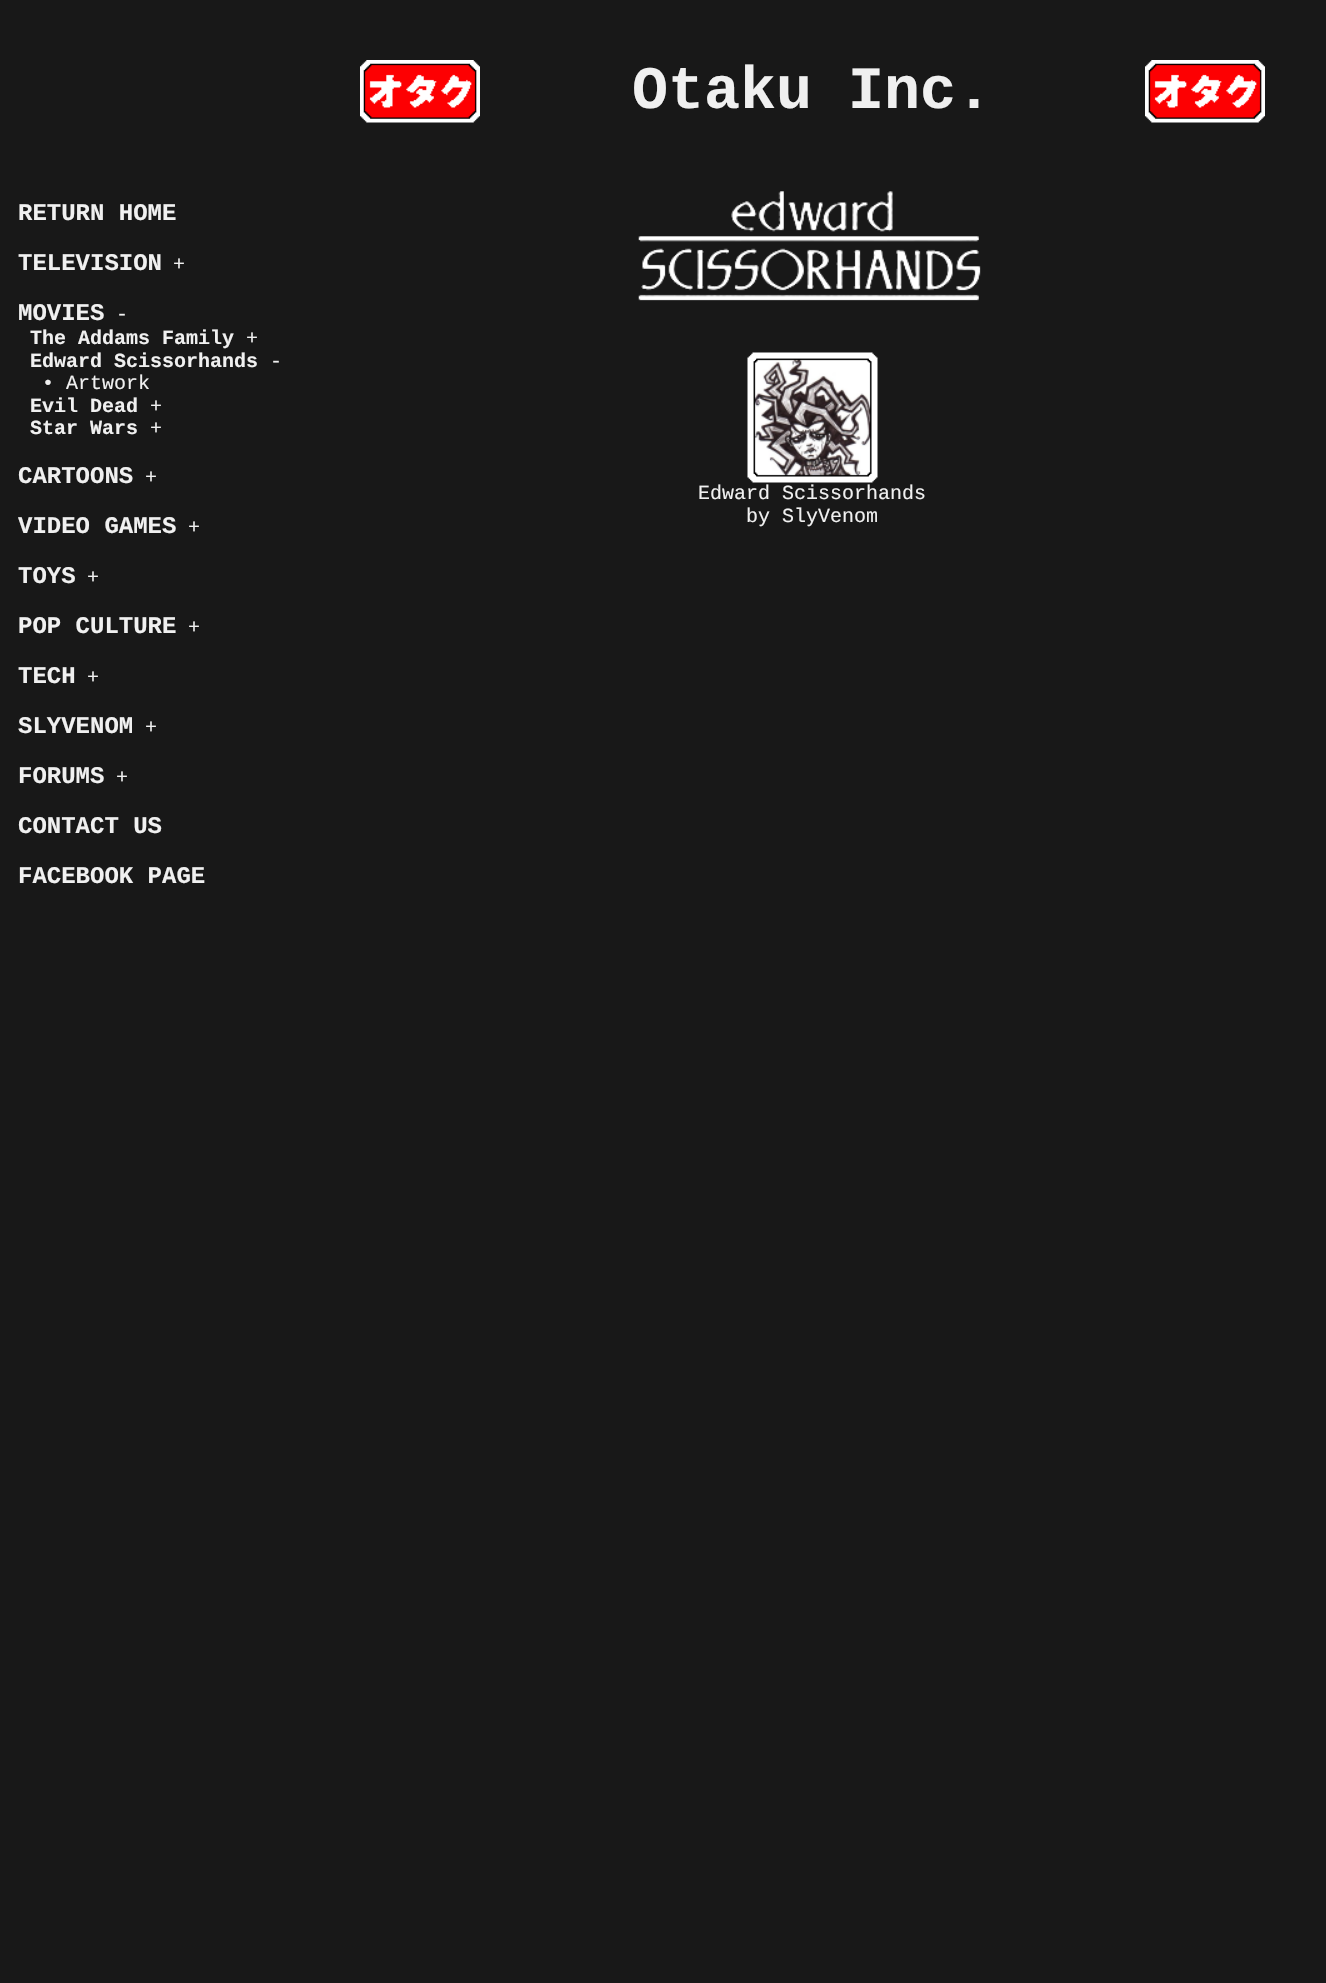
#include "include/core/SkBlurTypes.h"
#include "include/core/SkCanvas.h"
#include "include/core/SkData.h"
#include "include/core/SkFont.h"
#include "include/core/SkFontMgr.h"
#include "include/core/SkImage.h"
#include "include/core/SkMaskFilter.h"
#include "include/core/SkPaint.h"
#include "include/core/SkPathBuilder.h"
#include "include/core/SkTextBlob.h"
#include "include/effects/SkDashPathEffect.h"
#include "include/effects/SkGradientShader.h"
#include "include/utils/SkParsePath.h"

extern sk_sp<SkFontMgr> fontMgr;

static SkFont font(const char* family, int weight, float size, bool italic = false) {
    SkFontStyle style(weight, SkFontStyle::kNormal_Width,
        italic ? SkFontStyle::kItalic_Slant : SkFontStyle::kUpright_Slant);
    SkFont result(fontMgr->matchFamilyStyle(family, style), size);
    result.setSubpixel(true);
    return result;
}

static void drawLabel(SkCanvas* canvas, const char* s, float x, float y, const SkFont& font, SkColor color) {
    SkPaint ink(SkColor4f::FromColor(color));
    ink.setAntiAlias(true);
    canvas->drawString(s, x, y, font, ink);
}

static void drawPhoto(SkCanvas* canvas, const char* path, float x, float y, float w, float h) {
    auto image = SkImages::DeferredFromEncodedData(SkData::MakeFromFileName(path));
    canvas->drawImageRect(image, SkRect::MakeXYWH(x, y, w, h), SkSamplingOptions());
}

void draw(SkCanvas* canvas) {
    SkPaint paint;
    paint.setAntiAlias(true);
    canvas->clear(0xFF181818);
    drawPhoto(canvas, "assets/img1.png", 360, 60, 120, 63);
    SkFont font1 = font("Liberation Mono", 700, 60);
    drawLabel(canvas, "Otaku Inc.", 632, 108, font1, 0xFFF0F0F0);
    drawPhoto(canvas, "assets/img2.png", 1145, 60, 120, 63);
    SkFont font2 = font("Liberation Mono", 700, 24);
    drawLabel(canvas, "RETURN HOME", 18, 220, font2, 0xFFF0F0F0);
    drawLabel(canvas, "TELEVISION", 18, 270, font2, 0xFFF0F0F0);
    SkFont font3 = font("Liberation Mono", 400, 20);
    drawLabel(canvas, "+", 173, 270, font3, 0xFFF0F0F0);
    drawLabel(canvas, "MOVIES", 18, 320, font2, 0xFFF0F0F0);
    drawLabel(canvas, "-", 116, 320, font3, 0xFFF0F0F0);
    SkFont font4 = font("Liberation Mono", 700, 20);
    drawLabel(canvas, "The Addams Family", 30, 344, font4, 0xFFF0F0F0);
    drawLabel(canvas, "+", 246, 344, font3, 0xFFF0F0F0);
    drawLabel(canvas, "Edward Scissorhands", 30, 367, font4, 0xFFF0F0F0);
    drawLabel(canvas, "-", 270, 367, font3, 0xFFF0F0F0);
    drawLabel(canvas, "• Artwork", 42, 389, font3, 0xFFF0F0F0);
    drawLabel(canvas, "Evil Dead", 30, 412, font4, 0xFFF0F0F0);
    drawLabel(canvas, "+", 150, 412, font3, 0xFFF0F0F0);
    drawLabel(canvas, "Star Wars", 30, 434, font4, 0xFFF0F0F0);
    drawLabel(canvas, "+", 150, 434, font3, 0xFFF0F0F0);
    drawLabel(canvas, "CARTOONS", 18, 483, font2, 0xFFF0F0F0);
    drawLabel(canvas, "+", 145, 483, font3, 0xFFF0F0F0);
    drawLabel(canvas, "VIDEO GAMES", 18, 533, font2, 0xFFF0F0F0);
    drawLabel(canvas, "+", 188, 533, font3, 0xFFF0F0F0);
    drawLabel(canvas, "TOYS", 18, 583, font2, 0xFFF0F0F0);
    drawLabel(canvas, "+", 87, 583, font3, 0xFFF0F0F0);
    drawLabel(canvas, "POP CULTURE", 18, 633, font2, 0xFFF0F0F0);
    drawLabel(canvas, "+", 188, 633, font3, 0xFFF0F0F0);
    drawLabel(canvas, "TECH", 18, 683, font2, 0xFFF0F0F0);
    drawLabel(canvas, "+", 87, 683, font3, 0xFFF0F0F0);
    drawLabel(canvas, "SLYVENOM", 18, 733, font2, 0xFFF0F0F0);
    drawLabel(canvas, "+", 145, 733, font3, 0xFFF0F0F0);
    drawLabel(canvas, "FORUMS", 18, 783, font2, 0xFFF0F0F0);
    drawLabel(canvas, "+", 116, 783, font3, 0xFFF0F0F0);
    drawLabel(canvas, "CONTACT US", 18, 833, font2, 0xFFF0F0F0);
    drawLabel(canvas, "FACEBOOK PAGE", 18, 883, font2, 0xFFF0F0F0);
    drawPhoto(canvas, "assets/img3.png", 638, 191, 343, 110);
    drawPhoto(canvas, "assets/img4.png", 747, 352, 131, 131);
    drawPhoto(canvas, "assets/img5.png", 753, 358, 119, 119);
    drawLabel(canvas, "Edward Scissorhands", 698, 499, font3, 0xFFF0F0F0);
    drawLabel(canvas, "by SlyVenom", 746, 522, font3, 0xFFF0F0F0);
}
